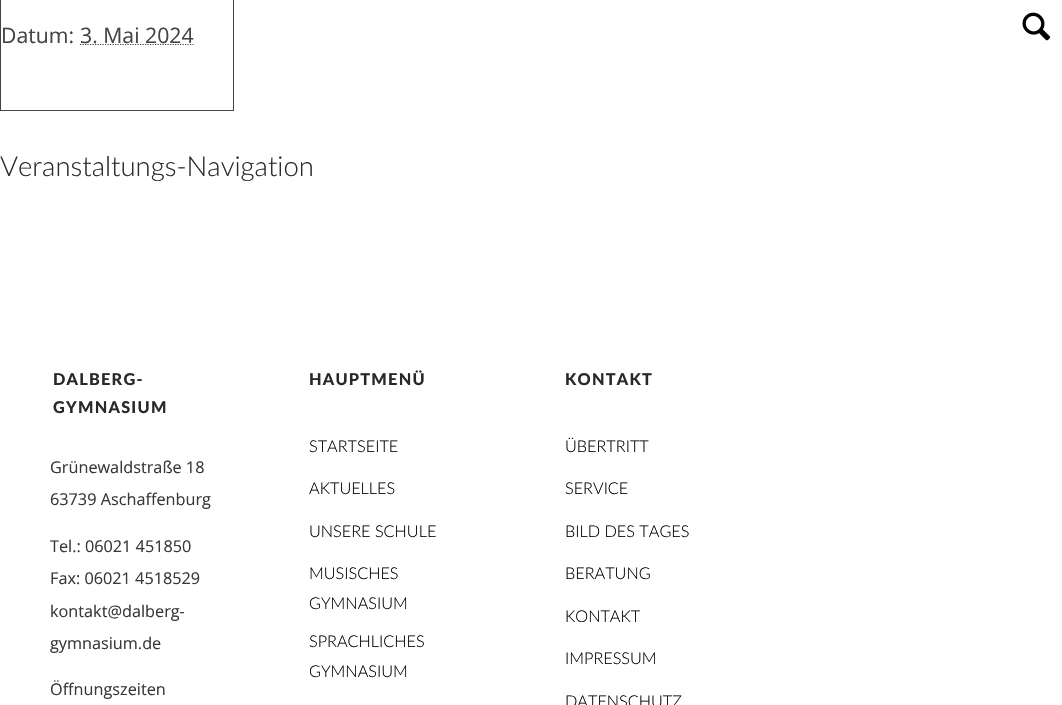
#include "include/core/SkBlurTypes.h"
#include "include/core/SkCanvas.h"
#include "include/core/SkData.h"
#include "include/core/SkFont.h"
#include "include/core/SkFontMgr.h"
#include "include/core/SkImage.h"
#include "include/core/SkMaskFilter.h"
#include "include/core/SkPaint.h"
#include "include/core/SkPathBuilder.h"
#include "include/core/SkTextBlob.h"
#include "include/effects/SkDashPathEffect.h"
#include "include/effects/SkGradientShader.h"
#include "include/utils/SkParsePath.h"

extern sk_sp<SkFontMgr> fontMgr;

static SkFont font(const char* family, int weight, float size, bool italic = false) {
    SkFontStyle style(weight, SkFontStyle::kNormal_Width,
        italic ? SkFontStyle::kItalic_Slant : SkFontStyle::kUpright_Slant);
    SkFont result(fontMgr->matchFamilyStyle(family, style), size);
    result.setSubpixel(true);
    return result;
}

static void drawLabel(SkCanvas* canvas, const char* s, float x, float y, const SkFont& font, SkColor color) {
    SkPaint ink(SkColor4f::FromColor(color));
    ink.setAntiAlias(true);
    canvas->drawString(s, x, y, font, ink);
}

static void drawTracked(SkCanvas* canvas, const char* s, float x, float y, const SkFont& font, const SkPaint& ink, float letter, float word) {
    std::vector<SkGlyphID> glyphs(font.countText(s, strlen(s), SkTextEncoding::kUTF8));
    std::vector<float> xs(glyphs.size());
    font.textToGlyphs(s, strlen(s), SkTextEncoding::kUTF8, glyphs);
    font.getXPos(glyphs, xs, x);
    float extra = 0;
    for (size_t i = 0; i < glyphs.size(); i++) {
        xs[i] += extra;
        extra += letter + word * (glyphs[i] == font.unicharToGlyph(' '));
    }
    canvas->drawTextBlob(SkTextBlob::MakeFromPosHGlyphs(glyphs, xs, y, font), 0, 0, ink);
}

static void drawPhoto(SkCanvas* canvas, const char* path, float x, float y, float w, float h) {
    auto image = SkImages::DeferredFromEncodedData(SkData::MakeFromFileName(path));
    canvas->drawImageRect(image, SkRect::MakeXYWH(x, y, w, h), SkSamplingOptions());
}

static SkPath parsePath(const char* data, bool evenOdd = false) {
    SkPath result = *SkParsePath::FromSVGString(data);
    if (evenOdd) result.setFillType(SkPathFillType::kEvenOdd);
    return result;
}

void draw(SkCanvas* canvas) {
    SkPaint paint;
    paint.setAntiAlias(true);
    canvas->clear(0xFFFFFFFF);
    paint.setStroke(true);
    paint.setStrokeWidth(1);
    paint.setColor(0xFF444444);
    canvas->drawRect(SkRect::MakeXYWH(0.5f, -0.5f, 233, 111), paint);
    SkFont font1 = font("Open Sans", 400, 21.25f);
    drawLabel(canvas, "Datum:", 1, 43, font1, 0xFF444444);
    paint.setStrokeWidth(1.2f);
    paint.setPathEffect(SkDashPathEffect::Make({{1.25f, 1.25f}}, 0));
    canvas->drawPath(parsePath("M80 44.5H193.5"), paint);
    paint.setPathEffect(nullptr);
    drawLabel(canvas, "3. Mai 2024", 80, 43, font1, 0xFF444444);
    SkFont font2 = font("Lato", 300, 27.5f);
    drawLabel(canvas, "Veranstaltungs-Navigation", 0, 176, font2, 0xFF292929);
    SkFont font3 = font("Lato", 900, 16.25f);
    paint.setStroke(false);
    paint.setColor(0xFF292929);
    drawTracked(canvas, "DALBERG-", 53, 385, font3, paint, 1.25f, 0);
    drawTracked(canvas, "GYMNASIUM", 53, 413, font3, paint, 1.25f, 0);
    SkFont font4 = font("Open Sans", 400, 16.25f);
    drawLabel(canvas, "Grünewaldstraße 18", 50, 473, font4, 0xFF383838);
    drawLabel(canvas, "63739 Aschaffenburg", 50, 505, font4, 0xFF383838);
    drawLabel(canvas, "Tel.: 06021 451850", 50, 552, font4, 0xFF383838);
    drawLabel(canvas, "Fax: 06021 4518529", 50, 584, font4, 0xFF383838);
    drawLabel(canvas, "kontakt@dalberg-", 50, 617, font4, 0xFF383838);
    drawLabel(canvas, "gymnasium.de", 50, 649, font4, 0xFF383838);
    drawLabel(canvas, "Öffnungszeiten", 50, 695, font4, 0xFF383838);
    drawTracked(canvas, "HAUPTMENÜ", 309, 385, font3, paint, 1.25f, 0);
    SkFont font5 = font("Lato", 300, 16.25f);
    drawLabel(canvas, "STARTSEITE", 309, 452, font5, 0xFF000000);
    drawLabel(canvas, "AKTUELLES", 309, 494, font5, 0xFF000000);
    drawLabel(canvas, "UNSERE SCHULE", 309, 537, font5, 0xFF000000);
    drawLabel(canvas, "MUSISCHES", 309, 579, font5, 0xFF000000);
    drawLabel(canvas, "GYMNASIUM", 309, 609, font5, 0xFF000000);
    drawLabel(canvas, "SPRACHLICHES", 309, 647, font5, 0xFF000000);
    drawLabel(canvas, "GYMNASIUM", 309, 677, font5, 0xFF000000);
    drawTracked(canvas, "KONTAKT", 565, 385, font3, paint, 1.25f, 0);
    drawLabel(canvas, "ÜBERTRITT", 565, 452, font5, 0xFF000000);
    drawLabel(canvas, "SERVICE", 565, 494, font5, 0xFF000000);
    drawLabel(canvas, "BILD DES TAGES", 565, 537, font5, 0xFF000000);
    drawLabel(canvas, "BERATUNG", 565, 579, font5, 0xFF000000);
    drawLabel(canvas, "KONTAKT", 565, 622, font5, 0xFF000000);
    drawLabel(canvas, "IMPRESSUM", 565, 664, font5, 0xFF000000);
    drawLabel(canvas, "DATENSCHUTZ", 565, 707, font5, 0xFF000000);
    drawPhoto(canvas, "assets/img1.png", 1022, 12, 29, 29);
}
